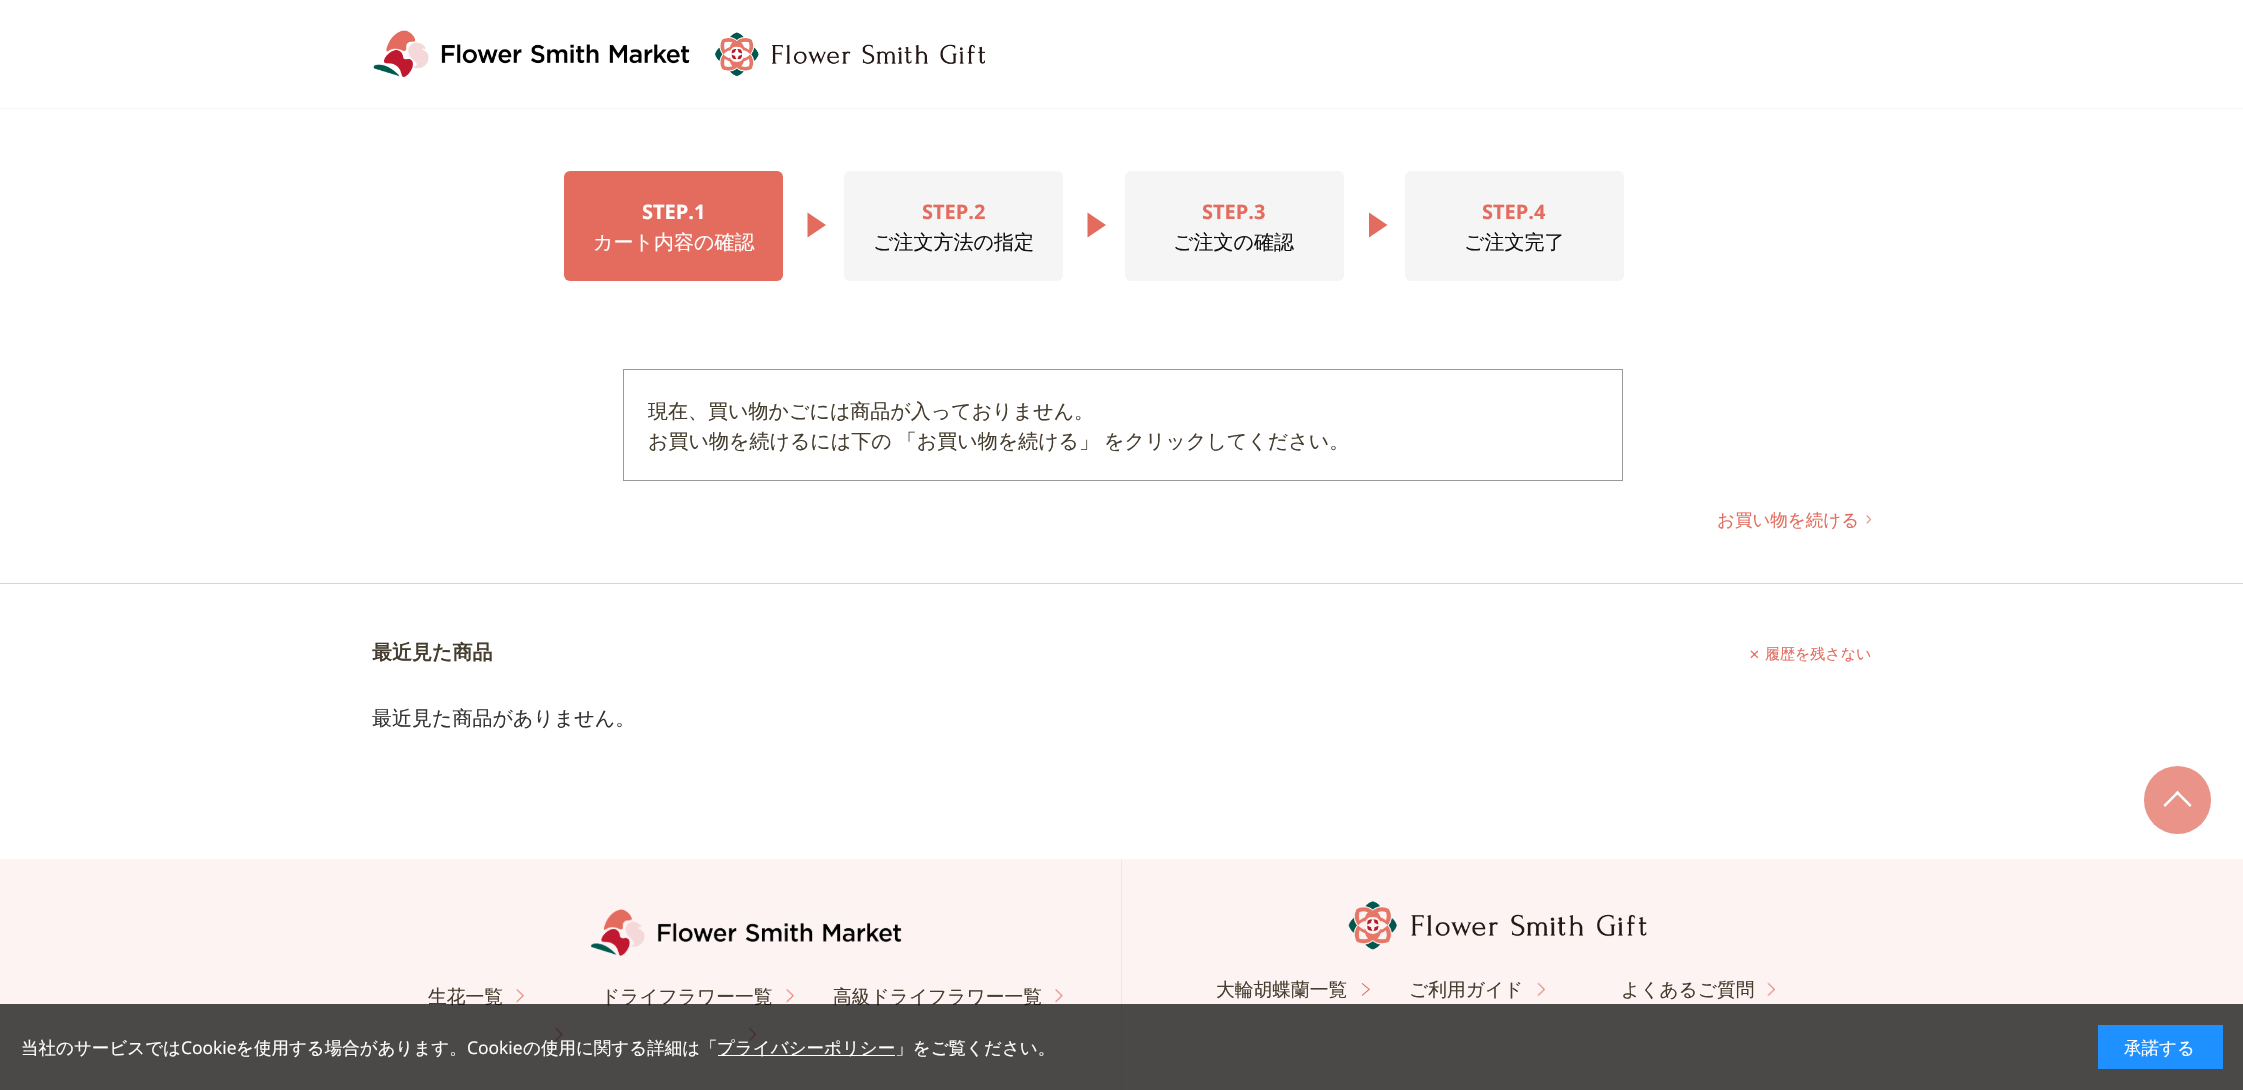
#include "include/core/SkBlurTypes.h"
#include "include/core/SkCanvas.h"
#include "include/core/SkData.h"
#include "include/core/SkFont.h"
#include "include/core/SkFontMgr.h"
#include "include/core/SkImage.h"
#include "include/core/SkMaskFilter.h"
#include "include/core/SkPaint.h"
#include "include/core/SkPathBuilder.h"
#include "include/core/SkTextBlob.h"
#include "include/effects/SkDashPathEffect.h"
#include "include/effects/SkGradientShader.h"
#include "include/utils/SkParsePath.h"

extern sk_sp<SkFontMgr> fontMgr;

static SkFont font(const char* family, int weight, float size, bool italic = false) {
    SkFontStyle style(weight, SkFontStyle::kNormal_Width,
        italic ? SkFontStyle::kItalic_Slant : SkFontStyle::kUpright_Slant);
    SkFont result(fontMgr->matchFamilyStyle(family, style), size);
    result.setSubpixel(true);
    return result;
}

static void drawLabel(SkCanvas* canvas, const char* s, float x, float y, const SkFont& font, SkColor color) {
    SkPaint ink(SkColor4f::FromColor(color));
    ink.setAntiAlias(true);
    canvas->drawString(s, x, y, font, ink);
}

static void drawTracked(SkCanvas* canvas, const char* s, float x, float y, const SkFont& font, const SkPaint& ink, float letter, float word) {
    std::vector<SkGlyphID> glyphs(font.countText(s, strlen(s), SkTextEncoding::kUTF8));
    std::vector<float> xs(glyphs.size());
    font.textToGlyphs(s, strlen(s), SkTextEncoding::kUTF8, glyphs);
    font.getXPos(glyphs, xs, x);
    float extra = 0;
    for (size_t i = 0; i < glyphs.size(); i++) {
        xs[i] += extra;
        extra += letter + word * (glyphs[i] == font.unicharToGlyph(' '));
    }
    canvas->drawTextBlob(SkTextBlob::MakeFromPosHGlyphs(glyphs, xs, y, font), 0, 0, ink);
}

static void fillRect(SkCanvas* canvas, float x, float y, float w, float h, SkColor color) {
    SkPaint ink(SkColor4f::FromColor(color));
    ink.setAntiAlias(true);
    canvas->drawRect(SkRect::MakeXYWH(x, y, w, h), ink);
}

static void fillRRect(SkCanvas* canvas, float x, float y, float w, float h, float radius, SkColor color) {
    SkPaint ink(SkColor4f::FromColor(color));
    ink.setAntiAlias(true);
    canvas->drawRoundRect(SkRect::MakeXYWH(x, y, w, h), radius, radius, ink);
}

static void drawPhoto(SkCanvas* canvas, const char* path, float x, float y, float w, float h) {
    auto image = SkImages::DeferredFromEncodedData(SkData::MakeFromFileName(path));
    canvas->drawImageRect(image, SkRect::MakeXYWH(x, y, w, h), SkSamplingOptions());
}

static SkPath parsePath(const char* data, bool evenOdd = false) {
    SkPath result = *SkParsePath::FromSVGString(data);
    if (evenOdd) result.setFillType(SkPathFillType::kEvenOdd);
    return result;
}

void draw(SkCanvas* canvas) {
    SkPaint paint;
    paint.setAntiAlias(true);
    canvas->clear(0xFFFFFFFF);
    drawPhoto(canvas, "assets/img1.png", 373, 30, 317, 47);
    drawPhoto(canvas, "assets/img2.png", 715, 32, 270, 45);
    fillRect(canvas, 0, 108, 2243, 1, 0xFFF5F5F5);
    fillRRect(canvas, 564, 171, 219, 110, 6, 0xFFE46C5E);
    SkFont font1 = font("Open Sans", 700, 20);
    drawLabel(canvas, "STEP.1", 642, 219, font1, 0xFFFFFFFF);
    paint.setColor(0xFFE46C5E);
    canvas->drawPath(parsePath("M807.5 237.5V212.5L826 225Z"), paint);
    SkFont font2 = font("WenQuanYi Zen Hei", 500, 20);
    drawLabel(canvas, "カート内容の確認", 593, 249, font2, 0xFFFFFFFF);
    fillRRect(canvas, 844, 171, 219, 110, 6, 0xFFF5F5F5);
    drawLabel(canvas, "STEP.2", 922, 219, font1, 0xFFE46C5E);
    canvas->drawPath(parsePath("M1087.5 237.5V212.5L1106 225Z"), paint);
    drawLabel(canvas, "ご注文方法の指定", 873, 249, font2, 0xFF111111);
    fillRRect(canvas, 1125, 171, 219, 110, 6, 0xFFF5F5F5);
    drawLabel(canvas, "STEP.3", 1202, 219, font1, 0xFFE46C5E);
    canvas->drawPath(parsePath("M1369 237.5V212.5L1387.5 225Z"), paint);
    drawLabel(canvas, "ご注文の確認", 1173, 249, font2, 0xFF111111);
    fillRRect(canvas, 1405, 171, 219, 110, 6, 0xFFF5F5F5);
    drawLabel(canvas, "STEP.4", 1482, 219, font1, 0xFFE46C5E);
    drawLabel(canvas, "ご注文完了", 1464, 249, font2, 0xFF111111);
    paint.setStroke(true);
    paint.setStrokeWidth(1);
    paint.setColor(0xFF999999);
    canvas->drawRect(SkRect::MakeXYWH(623.5f, 369.5f, 999, 111), paint);
    drawLabel(canvas, "現在、買い物かごには商品が入っておりません。", 648, 418, font2, 0xFF453D2F);
    paint.setStroke(false);
    paint.setColor(0xFF453D2F);
    drawTracked(canvas, "お買い物を続けるには下の 「お買い物を続ける」 をクリックしてください。", 648, 448, font2, paint, 0, -1);
    SkFont font3 = font("WenQuanYi Zen Hei", 500, 17.5f);
    drawLabel(canvas, "お買い物を続ける", 1717, 526, font3, 0xFFE46C5E);
    drawPhoto(canvas, "assets/img3.png", 1866, 515, 6, 9);
    fillRect(canvas, 0, 583, 2243, 1, 0xFFD5D5D5);
    SkFont font4 = font("WenQuanYi Zen Hei", 700, 20);
    drawLabel(canvas, "最近見た商品", 372, 659, font4, 0xFF453D2F);
    drawPhoto(canvas, "assets/img4.png", 1750, 650, 9, 9);
    SkFont font5 = font("WenQuanYi Zen Hei", 500, 15);
    drawLabel(canvas, "履歴を残さない", 1765, 659, font5, 0xFFE46C5E);
    drawLabel(canvas, "最近見た商品がありません。", 372, 725, font2, 0xFF333333);
    fillRRect(canvas, 2144, 766, 67, 68, 33.5f, 0xFFEA9489);
    paint.setColor(0xFFFFFFFF);
    canvas->drawPath(parsePath("M2163.5 805L2177.5 791L2179.5 792.5L2165 807Z"), paint);
    canvas->drawPath(parsePath("M2175.5 792.5L2177.5 791L2191.5 805L2190 807Z"), paint);
    fillRect(canvas, 0, 859, 2243, 231, 0xFFFCF3F2);
    drawPhoto(canvas, "assets/img5.png", 591, 909, 311, 47);
    SkFont font6 = font("WenQuanYi Zen Hei", 500, 18.75f);
    drawLabel(canvas, "生花一覧", 428, 1003, font6, 0xFF453D2F);
    drawPhoto(canvas, "assets/img6.png", 516, 988, 8, 15);
    drawLabel(canvas, "ドライフラワー一覧", 601, 1003, font6, 0xFF453D2F);
    drawPhoto(canvas, "assets/img6.png", 786, 988, 8, 15);
    drawLabel(canvas, "高級ドライフラワー一覧", 833, 1003, font6, 0xFF453D2F);
    drawPhoto(canvas, "assets/img7.png", 1055, 988, 8, 15);
    drawPhoto(canvas, "assets/img8.png", 555, 1027, 8, 15);
    drawPhoto(canvas, "assets/img9.png", 748, 1027, 9, 15);
    fillRect(canvas, 1121, 859, 1, 231, 0xFFF0E6E5);
    drawPhoto(canvas, "assets/img10.png", 1348, 901, 299, 49);
    drawLabel(canvas, "大輪胡蝶蘭一覧", 1216, 996, font6, 0xFF453D2F);
    drawPhoto(canvas, "assets/img11.png", 1361, 983, 9, 13);
    drawLabel(canvas, "ご利用ガイド", 1409, 996, font6, 0xFF453D2F);
    drawPhoto(canvas, "assets/img12.png", 1537, 982, 8, 15);
    drawLabel(canvas, "よくあるご質問", 1621, 996, font6, 0xFF453D2F);
    drawPhoto(canvas, "assets/img12.png", 1767, 982, 8, 15);
    fillRect(canvas, 0, 1004, 2243, 86, 0xB3000000);
    drawLabel(canvas, "当社のサービスでは", 21, 1054, font3, 0xFFFFFFFF);
    SkFont font7 = font("Open Sans", 400, 17.5f);
    drawLabel(canvas, "Cookie", 181, 1054, font7, 0xFFFFFFFF);
    drawLabel(canvas, "を使用する場合があります。", 236, 1054, font3, 0xFFFFFFFF);
    drawLabel(canvas, "Cookie", 467, 1054, font7, 0xFFFFFFFF);
    drawLabel(canvas, "の使用に関する詳細は「", 523, 1054, font3, 0xFFFFFFFF);
    fillRect(canvas, 718, 1055, 177, 1, 0xFFFFFFFF);
    drawLabel(canvas, "プライバシーポリシー」をご覧ください。", 717, 1054, font3, 0xFFFFFFFF);
    fillRect(canvas, 2098, 1025, 125, 44, 0xFF1E90FF);
    drawLabel(canvas, "承諾する", 2124, 1054, font3, 0xFFFFFFFF);
}
